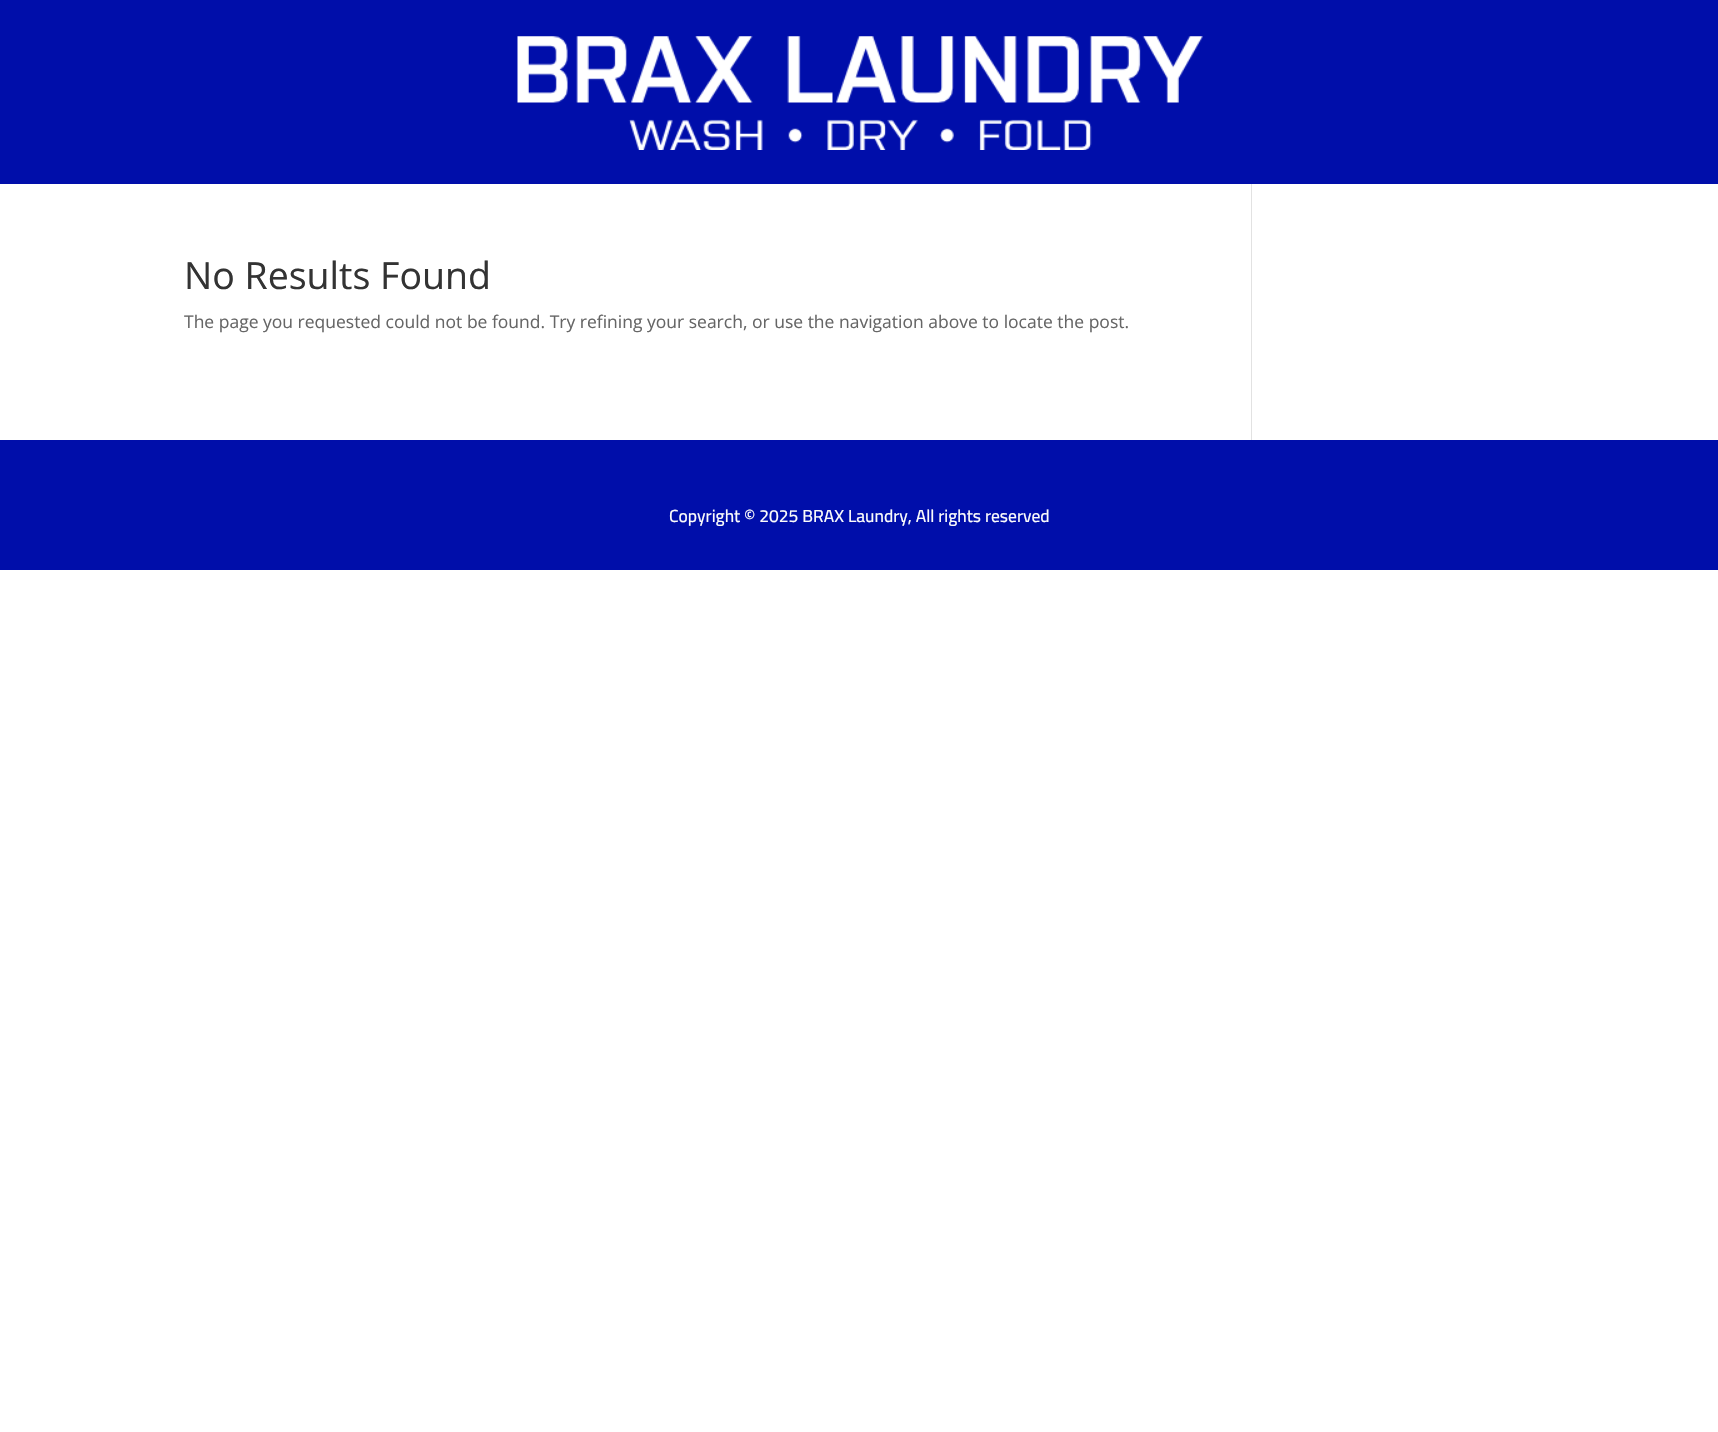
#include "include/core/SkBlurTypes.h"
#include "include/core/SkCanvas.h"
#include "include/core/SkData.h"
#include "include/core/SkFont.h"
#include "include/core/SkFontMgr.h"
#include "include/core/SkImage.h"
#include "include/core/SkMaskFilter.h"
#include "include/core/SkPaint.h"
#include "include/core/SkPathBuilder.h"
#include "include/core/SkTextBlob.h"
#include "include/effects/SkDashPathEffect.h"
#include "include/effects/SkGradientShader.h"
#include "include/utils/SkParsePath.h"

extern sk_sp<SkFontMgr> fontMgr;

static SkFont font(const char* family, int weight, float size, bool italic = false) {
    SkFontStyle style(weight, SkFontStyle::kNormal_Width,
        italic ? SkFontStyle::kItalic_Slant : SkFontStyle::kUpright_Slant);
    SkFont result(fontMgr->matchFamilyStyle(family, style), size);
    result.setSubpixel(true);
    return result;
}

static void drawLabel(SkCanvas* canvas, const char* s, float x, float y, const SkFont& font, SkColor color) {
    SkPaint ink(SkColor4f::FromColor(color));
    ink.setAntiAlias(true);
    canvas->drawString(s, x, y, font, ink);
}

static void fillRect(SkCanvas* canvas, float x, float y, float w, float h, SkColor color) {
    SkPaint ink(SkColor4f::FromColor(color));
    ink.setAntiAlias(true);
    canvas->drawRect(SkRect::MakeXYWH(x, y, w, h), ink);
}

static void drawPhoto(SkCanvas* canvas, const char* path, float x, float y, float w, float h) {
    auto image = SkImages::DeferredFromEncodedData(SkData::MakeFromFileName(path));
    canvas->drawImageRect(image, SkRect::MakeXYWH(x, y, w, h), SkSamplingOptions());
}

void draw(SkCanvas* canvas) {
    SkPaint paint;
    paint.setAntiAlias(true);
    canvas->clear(0xFFFFFFFF);
    fillRect(canvas, 0, 0, 1718, 184, 0xFF000EAA);
    drawPhoto(canvas, "assets/img1.png", 517, 36, 686, 114);
    SkFont font1 = font("Open Sans", 400, 37.5f);
    drawLabel(canvas, "No Results Found", 184, 289, font1, 0xFF333333);
    SkFont font2 = font("Open Sans", 400, 17.5f);
    drawLabel(canvas, "The page you requested could not be found. Try refining your search, or use the navigation above to locate the post.", 184, 328, font2, 0xFF666666);
    fillRect(canvas, 1251, 184, 1, 256, 0xFFE2E2E2);
    fillRect(canvas, 0, 440, 1718, 130, 0xFF000EAA);
    SkFont font3 = font("Cairo", 500, 17.5f);
    drawLabel(canvas, "Copyright © 2025 BRAX Laundry, All rights reserved", 669, 522, font3, 0xFFFBFBFB);
}
